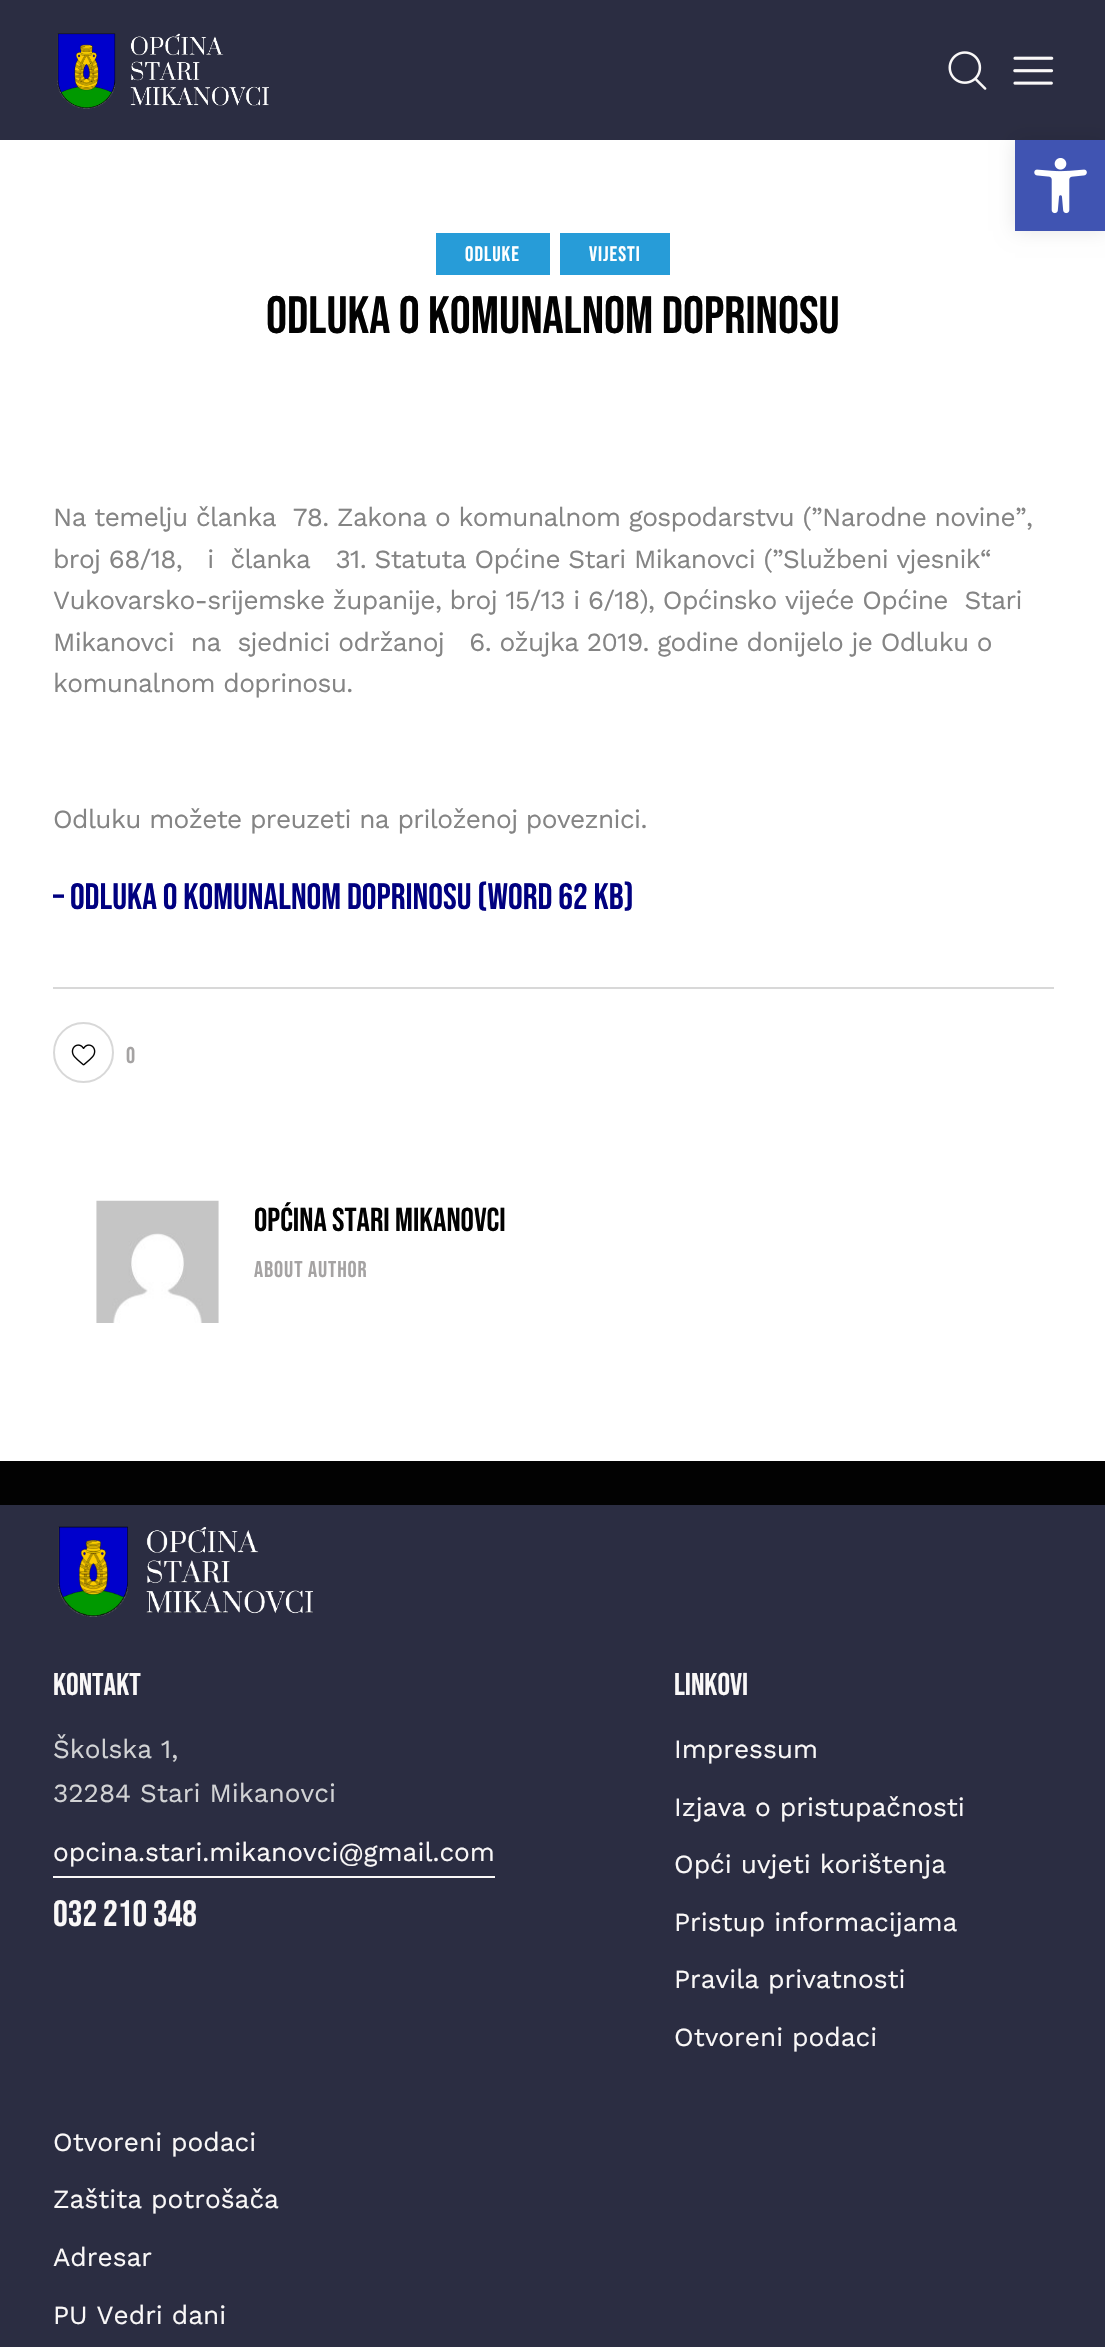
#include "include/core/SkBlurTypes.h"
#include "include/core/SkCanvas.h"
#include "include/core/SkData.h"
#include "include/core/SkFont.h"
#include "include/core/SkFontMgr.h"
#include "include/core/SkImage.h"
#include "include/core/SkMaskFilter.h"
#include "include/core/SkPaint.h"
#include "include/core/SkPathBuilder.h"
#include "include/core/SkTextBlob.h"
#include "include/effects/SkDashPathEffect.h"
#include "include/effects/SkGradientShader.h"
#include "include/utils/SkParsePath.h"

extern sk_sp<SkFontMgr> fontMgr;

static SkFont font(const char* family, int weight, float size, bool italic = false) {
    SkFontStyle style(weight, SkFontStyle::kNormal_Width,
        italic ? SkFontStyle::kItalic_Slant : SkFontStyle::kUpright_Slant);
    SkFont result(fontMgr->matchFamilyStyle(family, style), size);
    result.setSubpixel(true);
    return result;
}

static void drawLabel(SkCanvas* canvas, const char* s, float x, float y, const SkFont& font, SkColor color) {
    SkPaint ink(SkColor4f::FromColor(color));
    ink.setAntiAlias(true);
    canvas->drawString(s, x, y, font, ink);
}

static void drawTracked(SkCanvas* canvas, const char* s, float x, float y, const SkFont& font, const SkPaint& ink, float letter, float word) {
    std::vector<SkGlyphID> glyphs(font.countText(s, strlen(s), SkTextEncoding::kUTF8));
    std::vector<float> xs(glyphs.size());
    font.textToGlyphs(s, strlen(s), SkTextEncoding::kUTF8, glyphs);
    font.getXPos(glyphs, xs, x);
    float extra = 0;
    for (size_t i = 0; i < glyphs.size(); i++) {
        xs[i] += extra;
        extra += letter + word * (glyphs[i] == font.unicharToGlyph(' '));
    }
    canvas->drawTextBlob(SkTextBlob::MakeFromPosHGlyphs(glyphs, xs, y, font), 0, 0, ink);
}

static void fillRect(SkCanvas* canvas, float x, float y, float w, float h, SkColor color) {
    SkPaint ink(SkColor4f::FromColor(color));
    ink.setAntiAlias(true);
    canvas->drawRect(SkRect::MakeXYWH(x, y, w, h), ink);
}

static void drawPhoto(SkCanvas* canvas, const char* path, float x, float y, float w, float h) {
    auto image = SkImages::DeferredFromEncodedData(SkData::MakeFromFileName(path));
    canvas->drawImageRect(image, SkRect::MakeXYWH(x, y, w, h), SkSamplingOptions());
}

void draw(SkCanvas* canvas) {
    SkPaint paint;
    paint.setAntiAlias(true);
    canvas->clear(0xFFFFFFFF);
    fillRect(canvas, 0, 0, 1105, 140, 0xFF2B2D42);
    paint.setColor(0x1A000000);
    paint.setMaskFilter(SkMaskFilter::MakeBlur(kNormal_SkBlurStyle, 9));
    canvas->drawRect(SkRect::MakeXYWH(1015, 140, 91, 91), paint);
    paint.setMaskFilter(nullptr);
    fillRect(canvas, 1015, 140, 90, 91, 0xFF4054B2);
    drawPhoto(canvas, "assets/img1.png", 1034, 158, 53, 56);
    drawPhoto(canvas, "assets/img2.png", 57, 33, 212, 76);
    drawPhoto(canvas, "assets/img3.png", 948, 51, 39, 39);
    drawPhoto(canvas, "assets/img4.png", 1013, 56, 41, 29);
    fillRect(canvas, 436, 233, 114, 42, 0xFF279CD8);
    SkFont font1 = font("Bebas Neue", 400, 21);
    paint.setColor(0xFFFFFFFF);
    drawTracked(canvas, "ODLUKE", 465, 261, font1, paint, 1, 0);
    fillRect(canvas, 560, 233, 110, 42, 0xFF279CD8);
    drawTracked(canvas, "VIJESTI", 589, 261, font1, paint, 1, 0);
    SkFont font2 = font("Bebas Neue", 400, 52.5f);
    drawLabel(canvas, "Odluka o komunalnom doprinosu", 266, 333, font2, 0xFF020202);
    SkFont font3 = font("Work Sans", 400, 26.25f);
    paint.setColor(0xFF848484);
    drawTracked(canvas, "Na temelju članka  78. Zakona o komunalnom gospodarstvu (”Narodne novine”,", 53, 526, font3, paint, -0.6f, 0);
    drawTracked(canvas, "broj 68/18,   i  članka   31. Statuta Općine Stari Mikanovci (”Službeni vjesnik“", 53, 568, font3, paint, -0.6f, 0);
    drawTracked(canvas, "Vukovarsko-srijemske županije, broj 15/13 i 6/18), Općinsko vijeće Općine  Stari", 53, 609, font3, paint, -0.6f, 0);
    drawTracked(canvas, "Mikanovci  na  sjednici održanoj   6. ožujka 2019. godine donijelo je Odluku o", 53, 651, font3, paint, -0.6f, 0);
    drawTracked(canvas, "komunalnom doprinosu.", 53, 692, font3, paint, -0.6f, 0);
    drawTracked(canvas, "Odluku možete preuzeti na priloženoj poveznici.", 53, 828, font3, paint, -0.6f, 0);
    SkFont font4 = font("Bebas Neue", 400, 36.75f);
    drawLabel(canvas, "– Odluka o komunalnom doprinosu (WORD 62 kb)", 53, 909, font4, 0xFF000080);
    fillRect(canvas, 53, 987, 1001, 2, 0xFFD8D8D8);
    paint.setStroke(true);
    paint.setStrokeWidth(2);
    paint.setColor(0xFFD8D8D8);
    canvas->drawCircle(83.5f, 1052.5f, 29.5f, paint);
    drawPhoto(canvas, "assets/img5.png", 71, 1044, 25, 22);
    SkFont font5 = font("Bebas Neue", 400, 22.75f);
    drawLabel(canvas, "0", 126, 1063, font5, 0xFFA5A3A3);
    drawPhoto(canvas, "assets/img6.png", 96, 1200, 123, 123);
    SkFont font6 = font("Bebas Neue", 400, 33.25f);
    drawLabel(canvas, "Općina Stari Mikanovci", 254, 1231, font6, 0xFF020202);
    paint.setStroke(false);
    paint.setColor(0xFFA5A3A3);
    drawTracked(canvas, "ABOUT AUTHOR", 254, 1277, font5, paint, 0.9f, 0);
    fillRect(canvas, 0, 1461, 1105, 44, 0xFF020202);
    fillRect(canvas, 0, 1505, 1105, 842, 0xFF2B2D42);
    drawPhoto(canvas, "assets/img7.png", 58, 1526, 255, 91);
    SkFont font7 = font("Bebas Neue", 400, 31.5f);
    drawLabel(canvas, "Kontakt", 53, 1695, font7, 0xFFFAF8F8);
    drawLabel(canvas, "Školska 1,", 53, 1758, font3, 0xFFD2D3D5);
    drawLabel(canvas, "32284 Stari Mikanovci", 53, 1802, font3, 0xFFD2D3D5);
    drawLabel(canvas, "opcina.stari.mikanovci@gmail.com", 53, 1861, font3, 0xFFFAF8F8);
    fillRect(canvas, 53, 1876, 442, 2, 0xFFFAF8F8);
    drawLabel(canvas, "032 210 348", 53, 1926, font4, 0xFFFAF8F8);
    drawLabel(canvas, "Linkovi", 674, 1695, font7, 0xFFFAF8F8);
    drawLabel(canvas, "Impressum", 674, 1758, font3, 0xFFFAF8F8);
    drawLabel(canvas, "Izjava o pristupačnosti", 674, 1816, font3, 0xFFFAF8F8);
    drawLabel(canvas, "Opći uvjeti korištenja", 674, 1873, font3, 0xFFFAF8F8);
    drawLabel(canvas, "Pristup informacijama", 674, 1931, font3, 0xFFFAF8F8);
    drawLabel(canvas, "Pravila privatnosti", 674, 1988, font3, 0xFFFAF8F8);
    drawLabel(canvas, "Otvoreni podaci", 674, 2046, font3, 0xFFFAF8F8);
    drawLabel(canvas, "Otvoreni podaci", 53, 2151, font3, 0xFFFAF8F8);
    drawLabel(canvas, "Zaštita potrošača", 53, 2208, font3, 0xFFFAF8F8);
    drawLabel(canvas, "Adresar", 53, 2266, font3, 0xFFFAF8F8);
    drawLabel(canvas, "PU Vedri dani", 53, 2324, font3, 0xFFFAF8F8);
}
